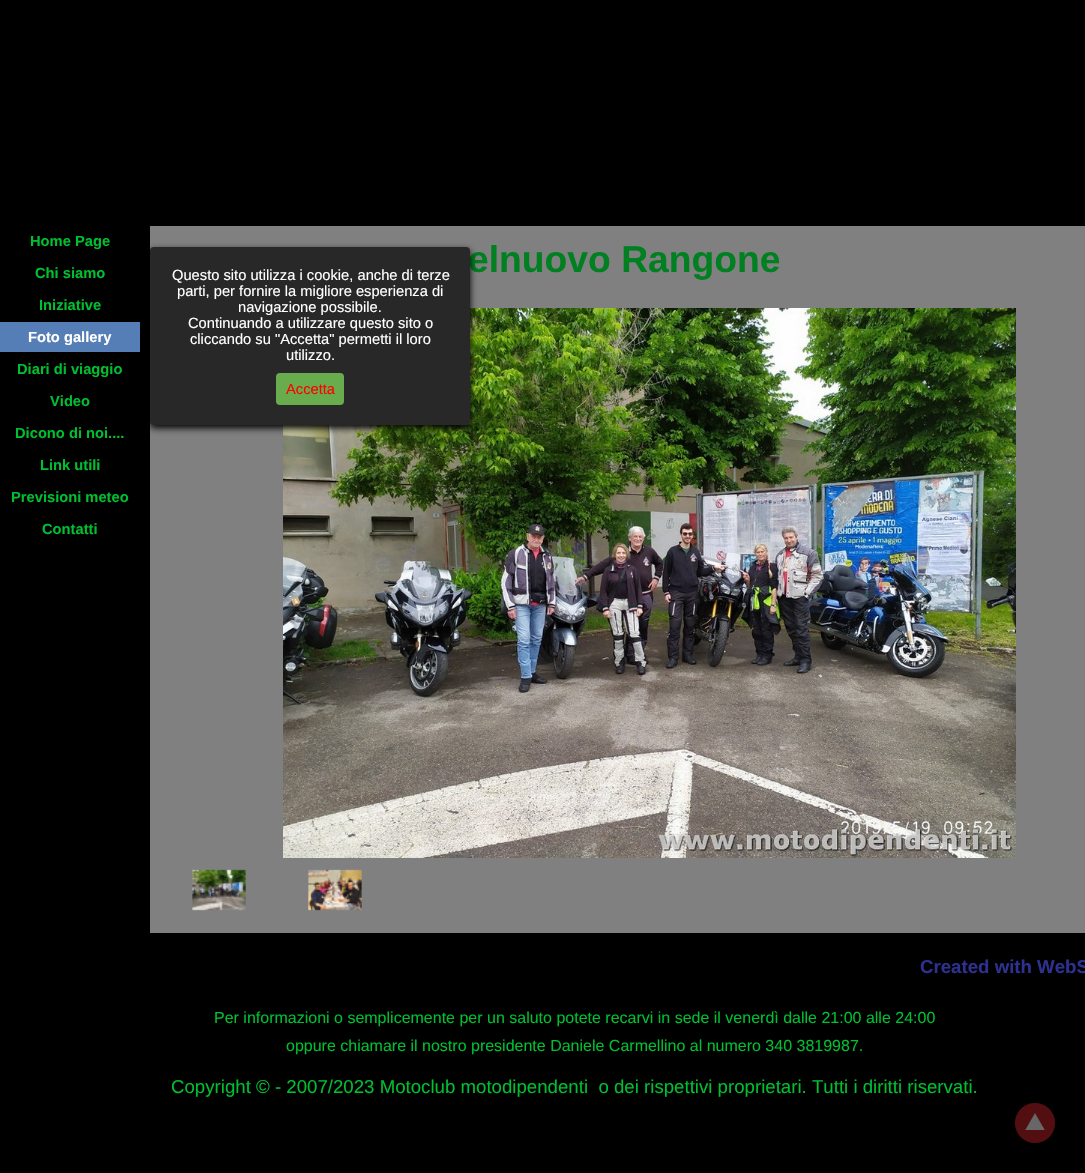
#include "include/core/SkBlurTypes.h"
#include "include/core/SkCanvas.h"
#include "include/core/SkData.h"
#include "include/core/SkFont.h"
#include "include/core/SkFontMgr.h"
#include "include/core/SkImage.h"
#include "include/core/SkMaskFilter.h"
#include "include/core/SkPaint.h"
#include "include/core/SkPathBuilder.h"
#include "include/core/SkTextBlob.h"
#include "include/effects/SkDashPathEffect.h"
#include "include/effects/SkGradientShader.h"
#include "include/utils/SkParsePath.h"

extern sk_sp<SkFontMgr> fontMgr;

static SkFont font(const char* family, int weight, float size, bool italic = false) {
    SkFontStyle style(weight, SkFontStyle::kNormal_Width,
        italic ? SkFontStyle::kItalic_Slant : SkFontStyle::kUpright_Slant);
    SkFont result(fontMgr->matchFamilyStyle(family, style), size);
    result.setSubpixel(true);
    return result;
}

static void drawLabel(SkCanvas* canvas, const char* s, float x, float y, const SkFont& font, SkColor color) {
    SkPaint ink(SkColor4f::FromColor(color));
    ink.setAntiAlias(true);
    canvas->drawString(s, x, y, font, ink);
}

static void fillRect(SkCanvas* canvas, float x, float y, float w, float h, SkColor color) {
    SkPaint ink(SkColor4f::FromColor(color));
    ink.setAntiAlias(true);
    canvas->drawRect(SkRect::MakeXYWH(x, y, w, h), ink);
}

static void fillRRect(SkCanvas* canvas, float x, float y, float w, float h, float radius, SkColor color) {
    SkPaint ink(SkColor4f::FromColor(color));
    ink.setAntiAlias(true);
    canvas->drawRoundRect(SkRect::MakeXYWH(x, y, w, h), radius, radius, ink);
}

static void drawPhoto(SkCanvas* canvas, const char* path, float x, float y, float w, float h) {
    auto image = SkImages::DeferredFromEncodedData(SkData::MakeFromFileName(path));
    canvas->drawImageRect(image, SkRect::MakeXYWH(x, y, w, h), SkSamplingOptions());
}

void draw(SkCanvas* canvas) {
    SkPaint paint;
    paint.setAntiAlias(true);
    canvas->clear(0xFF000000);
    SkFont font1 = font("Liberation Sans", 700, 14.7f);
    drawLabel(canvas, "Home Page", 30, 246, font1, 0xFF00BF30);
    drawLabel(canvas, "Chi siamo", 35, 278, font1, 0xFF00BF30);
    drawLabel(canvas, "Iniziative", 39, 310, font1, 0xFF00BF30);
    fillRect(canvas, 0, 322, 140, 30, 0xFF567EB6);
    drawLabel(canvas, "Foto gallery", 28, 342, font1, 0xFFFFFFFF);
    drawLabel(canvas, "Diari di viaggio", 17, 374, font1, 0xFF00BF30);
    drawLabel(canvas, "Video", 50, 406, font1, 0xFF00BF30);
    drawLabel(canvas, "Dicono di noi....", 15, 438, font1, 0xFF00BF30);
    drawLabel(canvas, "Link utili", 40, 470, font1, 0xFF00BF30);
    drawLabel(canvas, "Previsioni meteo", 11, 502, font1, 0xFF00BF30);
    drawLabel(canvas, "Contatti", 42, 534, font1, 0xFF00BF30);
    fillRect(canvas, 150, 226, 935, 707, 0xFF808080);
    SkFont font2 = font("Liberation Sans", 700, 37.25f);
    drawLabel(canvas, "elnuovo Rangone", 468, 272, font2, 0xFF008020);
    drawPhoto(canvas, "assets/img1.png", 283, 308, 733, 550);
    drawPhoto(canvas, "assets/img2.png", 192, 869, 54, 42);
    drawPhoto(canvas, "assets/img3.png", 308, 869, 54, 42);
    SkFont font3 = font("Liberation Sans", 700, 18.65f);
    drawLabel(canvas, "Created with WebS", 920, 973, font3, 0xFF2E3192);
    SkFont font4 = font("Liberation Sans", 400, 16);
    drawLabel(canvas, "Per informazioni o semplicemente per un saluto potete recarvi in sede il venerdì dalle 21:00 alle 24:00", 214, 1023, font4, 0xFF00BF30);
    drawLabel(canvas, "oppure chiamare il nostro presidente Daniele Carmellino al numero 340 3819987.", 286, 1051, font4, 0xFF00BF30);
    SkFont font5 = font("Liberation Sans", 400, 18.65f);
    drawLabel(canvas, "Copyright © - 2007/2023 Motoclub motodipendenti  o dei rispettivi proprietari. Tutti i diritti riservati.", 171, 1093, font5, 0xFF00BF30);
    paint.setColor(0xFF000000);
    paint.setMaskFilter(SkMaskFilter::MakeBlur(kNormal_SkBlurStyle, 3.5f));
    canvas->drawRoundRect(SkRect::MakeXYWH(150, 250, 320, 178), 4, 4, paint);
    paint.setMaskFilter(nullptr);
    fillRRect(canvas, 150, 247, 320, 178, 4, 0xFF282828);
    SkFont font6 = font("Liberation Sans", 400, 14.7f);
    drawLabel(canvas, "Questo sito utilizza i cookie, anche di terze", 172, 280, font6, 0xFFFFFFFF);
    drawLabel(canvas, "parti, per fornire la migliore esperienza di", 177, 296, font6, 0xFFFFFFFF);
    drawLabel(canvas, "navigazione possibile.", 238, 312, font6, 0xFFFFFFFF);
    drawLabel(canvas, "Continuando a utilizzare questo sito o", 188, 328, font6, 0xFFFFFFFF);
    drawLabel(canvas, "cliccando su \"Accetta\" permetti il loro", 190, 344, font6, 0xFFFFFFFF);
    drawLabel(canvas, "utilizzo.", 286, 360, font6, 0xFFFFFFFF);
    fillRRect(canvas, 276, 373, 68, 32, 4, 0xFF69AC4D);
    drawLabel(canvas, "Accetta", 286, 394, font6, 0xFFFF0000);
    drawPhoto(canvas, "assets/img4.png", 1015, 1103, 40, 40);
}
